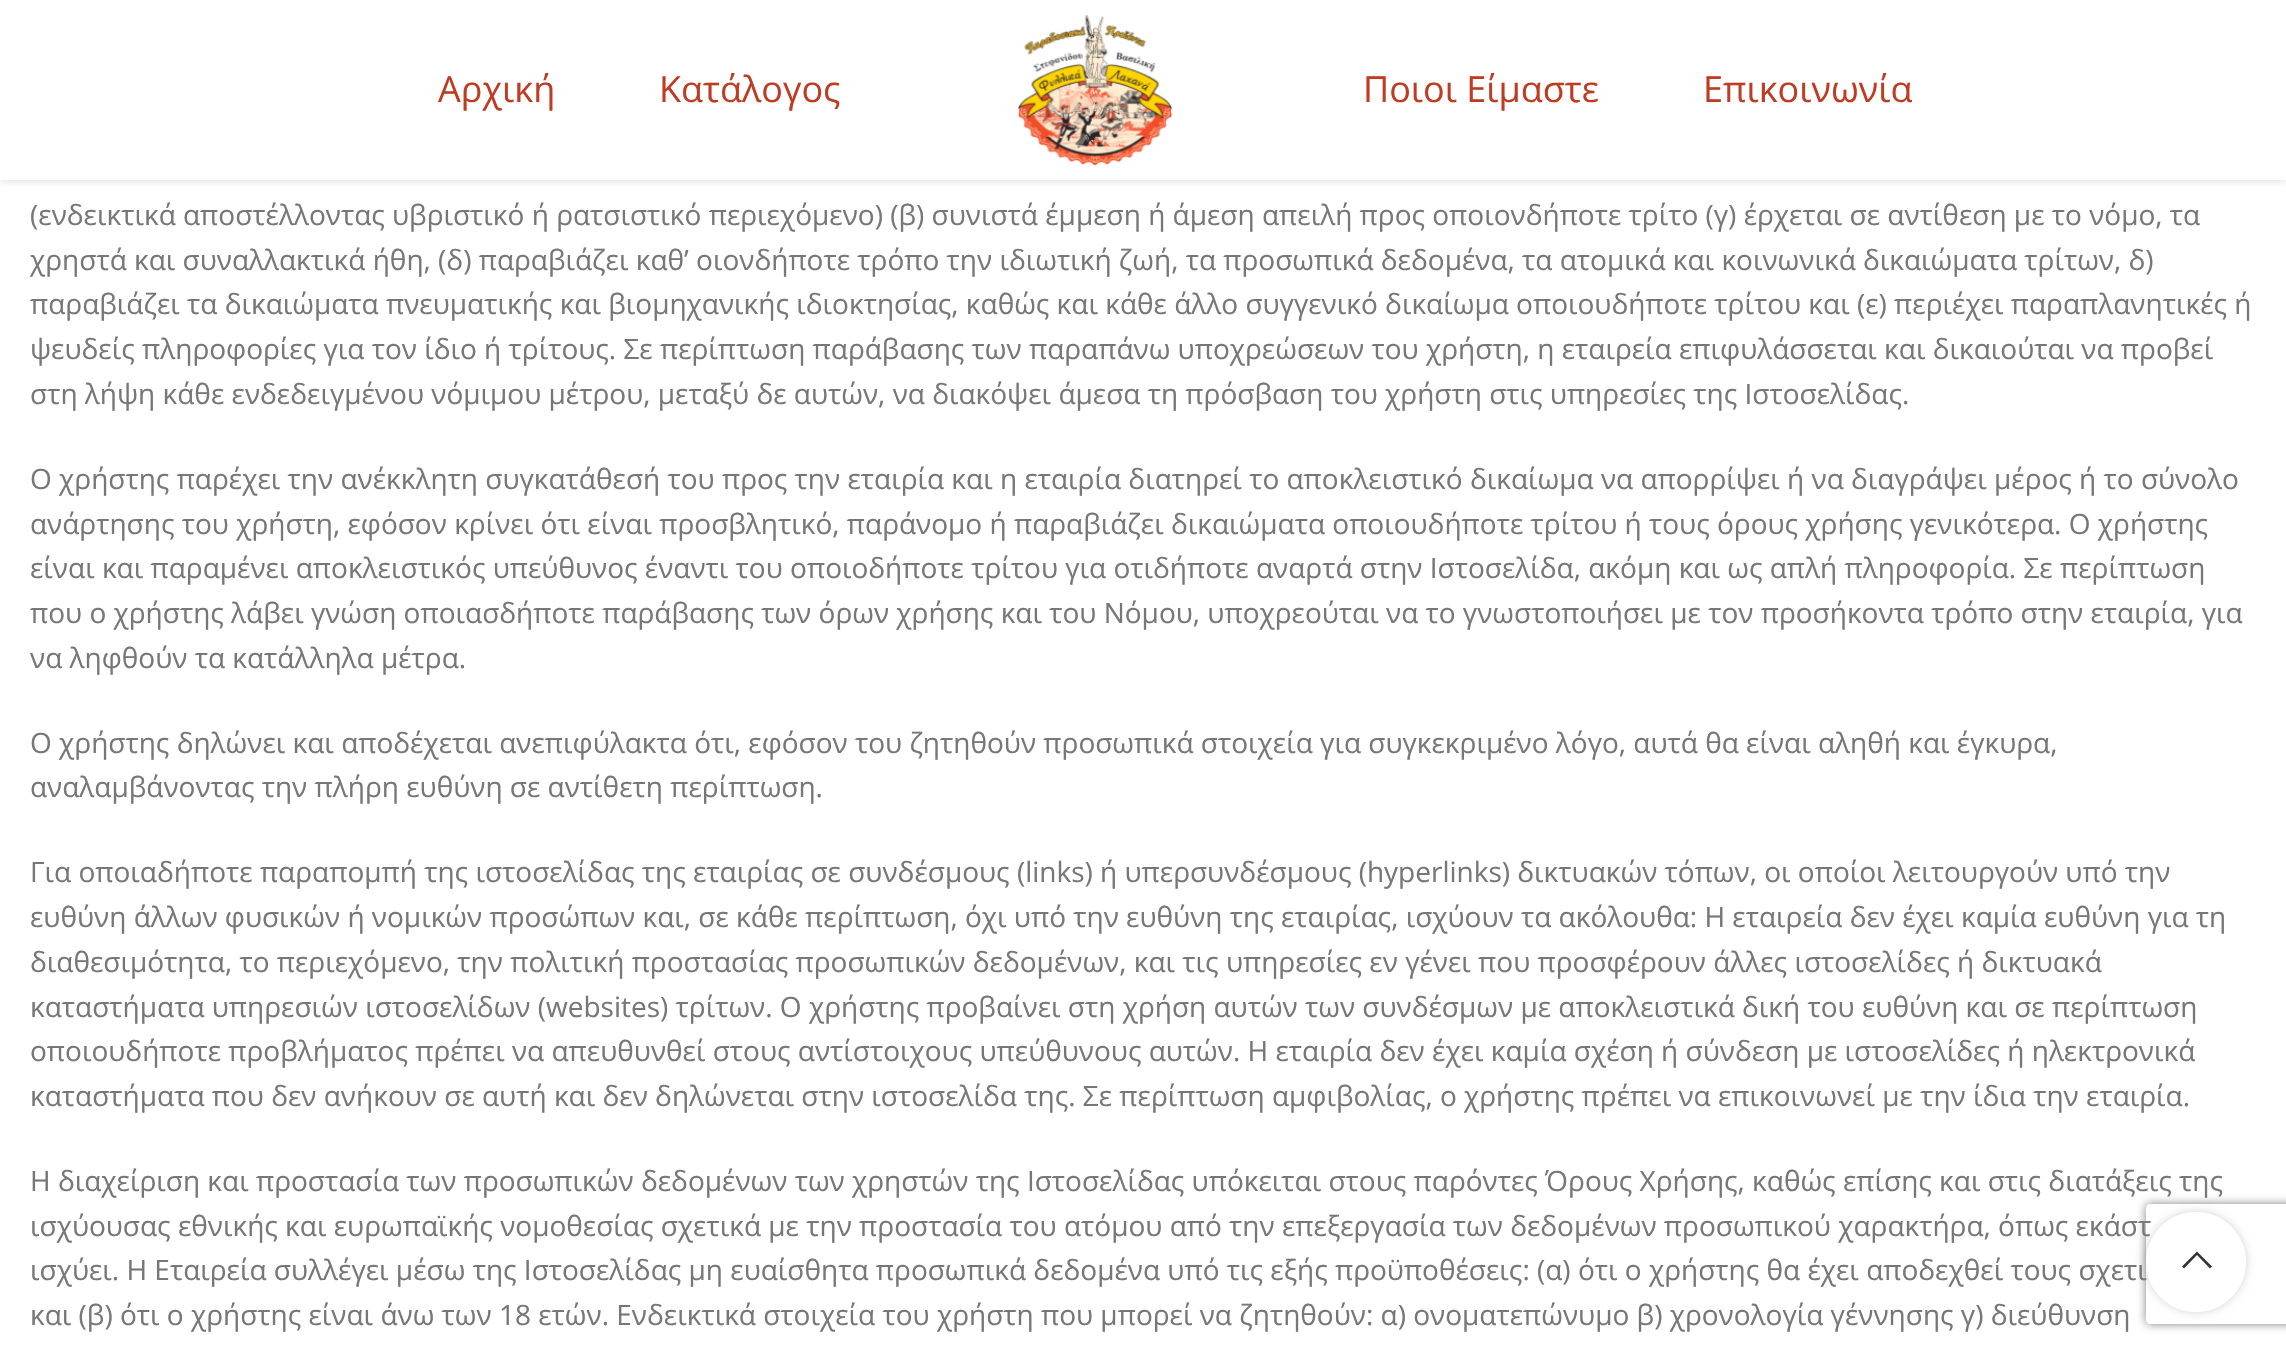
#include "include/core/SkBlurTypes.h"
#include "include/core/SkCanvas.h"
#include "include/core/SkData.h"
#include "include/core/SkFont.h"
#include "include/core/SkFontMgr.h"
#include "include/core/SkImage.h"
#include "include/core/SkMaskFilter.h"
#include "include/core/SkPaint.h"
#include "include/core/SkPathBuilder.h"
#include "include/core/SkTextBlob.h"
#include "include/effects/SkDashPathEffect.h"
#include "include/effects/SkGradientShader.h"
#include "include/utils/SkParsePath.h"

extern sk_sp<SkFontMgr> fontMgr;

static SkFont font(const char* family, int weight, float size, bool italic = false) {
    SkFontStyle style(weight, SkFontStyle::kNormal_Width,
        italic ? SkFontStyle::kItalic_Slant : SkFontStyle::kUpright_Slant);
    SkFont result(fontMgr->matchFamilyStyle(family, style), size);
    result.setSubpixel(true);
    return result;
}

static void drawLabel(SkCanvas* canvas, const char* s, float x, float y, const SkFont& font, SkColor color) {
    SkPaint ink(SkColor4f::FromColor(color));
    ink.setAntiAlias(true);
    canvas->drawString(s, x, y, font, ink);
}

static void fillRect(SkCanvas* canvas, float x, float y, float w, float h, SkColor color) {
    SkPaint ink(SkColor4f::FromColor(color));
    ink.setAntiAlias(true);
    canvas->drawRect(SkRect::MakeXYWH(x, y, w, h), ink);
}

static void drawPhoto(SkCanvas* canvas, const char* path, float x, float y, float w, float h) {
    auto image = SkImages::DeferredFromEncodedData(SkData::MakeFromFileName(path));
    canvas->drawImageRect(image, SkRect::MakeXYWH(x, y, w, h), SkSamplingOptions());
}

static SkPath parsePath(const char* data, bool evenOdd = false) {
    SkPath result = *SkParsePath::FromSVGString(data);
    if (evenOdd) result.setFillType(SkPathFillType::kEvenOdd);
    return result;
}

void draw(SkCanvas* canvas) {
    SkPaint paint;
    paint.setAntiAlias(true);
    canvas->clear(0xFFFFFFFF);
    paint.setColor(0x1A000000);
    paint.setMaskFilter(SkMaskFilter::MakeBlur(kNormal_SkBlurStyle, 3));
    canvas->drawRect(SkRect::MakeXYWH(0, 2, 2286, 180), paint);
    paint.setMaskFilter(nullptr);
    fillRect(canvas, 0, 0, 2286, 180, 0xFFFFFFFF);
    SkFont font1 = font("Open Sans", 400, 36);
    drawLabel(canvas, "Αρχική", 438, 102, font1, 0xFFBF3C23);
    drawLabel(canvas, "Κατάλογος", 659, 102, font1, 0xFFBF3C23);
    drawPhoto(canvas, "assets/img1.png", 1018, 15, 155, 151);
    drawLabel(canvas, "Ποιοι Είμαστε", 1363, 102, font1, 0xFFBF3C23);
    drawLabel(canvas, "Επικοινωνία", 1703, 102, font1, 0xFFBF3C23);
    SkFont font2 = font("Open Sans", 400, 28);
    drawLabel(canvas, "(ενδεικτικά αποστέλλοντας υβριστικό ή ρατσιστικό περιεχόμενο) (β) συνιστά έμμεση ή άμεση απειλή προς οποιονδήποτε τρίτο (γ) έρχεται σε αντίθεση με το νόμο, τα", 30, 225, font2, 0xFF777777);
    drawLabel(canvas, "χρηστά και συναλλακτικά ήθη, (δ) παραβιάζει καθ’ οιονδήποτε τρόπο την ιδιωτική ζωή, τα προσωπικά δεδομένα, τα ατομικά και κοινωνικά δικαιώματα τρίτων, δ)", 30, 270, font2, 0xFF777777);
    drawLabel(canvas, "παραβιάζει τα δικαιώματα πνευματικής και βιομηχανικής ιδιοκτησίας, καθώς και κάθε άλλο συγγενικό δικαίωμα οποιουδήποτε τρίτου και (ε) περιέχει παραπλανητικές ή", 30, 314, font2, 0xFF777777);
    drawLabel(canvas, "ψευδείς πληροφορίες για τον ίδιο ή τρίτους. Σε περίπτωση παράβασης των παραπάνω υποχρεώσεων του χρήστη, η εταιρεία επιφυλάσσεται και δικαιούται να προβεί", 30, 359, font2, 0xFF777777);
    drawLabel(canvas, "στη λήψη κάθε ενδεδειγμένου νόμιμου μέτρου, μεταξύ δε αυτών, να διακόψει άμεσα τη πρόσβαση του χρήστη στις υπηρεσίες της Ιστοσελίδας.", 30, 404, font2, 0xFF777777);
    drawLabel(canvas, "Ο χρήστης παρέχει την ανέκκλητη συγκατάθεσή του προς την εταιρία και η εταιρία διατηρεί το αποκλειστικό δικαίωμα να απορρίψει ή να διαγράψει μέρος ή το σύνολο", 30, 489, font2, 0xFF777777);
    drawLabel(canvas, "ανάρτησης του χρήστη, εφόσον κρίνει ότι είναι προσβλητικό, παράνομο ή παραβιάζει δικαιώματα οποιουδήποτε τρίτου ή τους όρους χρήσης γενικότερα. Ο χρήστης", 30, 534, font2, 0xFF777777);
    drawLabel(canvas, "είναι και παραμένει αποκλειστικός υπεύθυνος έναντι του οποιοδήποτε τρίτου για οτιδήποτε αναρτά στην Ιστοσελίδα, ακόμη και ως απλή πληροφορία. Σε περίπτωση", 30, 578, font2, 0xFF777777);
    drawLabel(canvas, "που ο χρήστης λάβει γνώση οποιασδήποτε παράβασης των όρων χρήσης και του Νόμου, υποχρεούται να το γνωστοποιήσει με τον προσήκοντα τρόπο στην εταιρία, για", 30, 623, font2, 0xFF777777);
    drawLabel(canvas, "να ληφθούν τα κατάλληλα μέτρα.", 30, 668, font2, 0xFF777777);
    drawLabel(canvas, "Ο χρήστης δηλώνει και αποδέχεται ανεπιφύλακτα ότι, εφόσον του ζητηθούν προσωπικά στοιχεία για συγκεκριμένο λόγο, αυτά θα είναι αληθή και έγκυρα,", 30, 753, font2, 0xFF777777);
    drawLabel(canvas, "αναλαμβάνοντας την πλήρη ευθύνη σε αντίθετη περίπτωση.", 30, 797, font2, 0xFF777777);
    drawLabel(canvas, "Για οποιαδήποτε παραπομπή της ιστοσελίδας της εταιρίας σε συνδέσμους (links) ή υπερσυνδέσμους (hyperlinks) δικτυακών τόπων, οι οποίοι λειτουργούν υπό την", 30, 882, font2, 0xFF777777);
    drawLabel(canvas, "ευθύνη άλλων φυσικών ή νομικών προσώπων και, σε κάθε περίπτωση, όχι υπό την ευθύνη της εταιρίας, ισχύουν τα ακόλουθα: Η εταιρεία δεν έχει καμία ευθύνη για τη", 30, 927, font2, 0xFF777777);
    drawLabel(canvas, "διαθεσιμότητα, το περιεχόμενο, την πολιτική προστασίας προσωπικών δεδομένων, και τις υπηρεσίες εν γένει που προσφέρουν άλλες ιστοσελίδες ή δικτυακά", 30, 972, font2, 0xFF777777);
    drawLabel(canvas, "καταστήματα υπηρεσιών ιστοσελίδων (websites) τρίτων. Ο χρήστης προβαίνει στη χρήση αυτών των συνδέσμων με αποκλειστικά δική του ευθύνη και σε περίπτωση", 30, 1017, font2, 0xFF777777);
    drawLabel(canvas, "οποιουδήποτε προβλήματος πρέπει να απευθυνθεί στους αντίστοιχους υπεύθυνους αυτών. Η εταιρία δεν έχει καμία σχέση ή σύνδεση με ιστοσελίδες ή ηλεκτρονικά", 30, 1061, font2, 0xFF777777);
    drawLabel(canvas, "καταστήματα που δεν ανήκουν σε αυτή και δεν δηλώνεται στην ιστοσελίδα της. Σε περίπτωση αμφιβολίας, ο χρήστης πρέπει να επικοινωνεί με την ίδια την εταιρία.", 30, 1106, font2, 0xFF777777);
    drawLabel(canvas, "Η διαχείριση και προστασία των προσωπικών δεδομένων των χρηστών της Ιστοσελίδας υπόκειται στους παρόντες Όρους Χρήσης, καθώς επίσης και στις διατάξεις της", 30, 1191, font2, 0xFF777777);
    drawLabel(canvas, "ισχύουσας εθνικής και ευρωπαϊκής νομοθεσίας σχετικά με την προστασία του ατόμου από την επεξεργασία των δεδομένων προσωπικού χαρακτήρα, όπως εκάστ", 30, 1236, font2, 0xFF777777);
    drawLabel(canvas, "ισχύει. Η Εταιρεία συλλέγει μέσω της Ιστοσελίδας μη ευαίσθητα προσωπικά δεδομένα υπό τις εξής προϋποθέσεις: (α) ότι ο χρήστης θα έχει αποδεχθεί τους σχετι", 30, 1280, font2, 0xFF777777);
    drawLabel(canvas, "και (β) ότι ο χρήστης είναι άνω των 18 ετών. Ενδεικτικά στοιχεία του χρήστη που μπορεί να ζητηθούν: α) ονοματεπώνυμο β) χρονολογία γέννησης γ) διεύθυνση", 30, 1325, font2, 0xFF777777);
    canvas->save();
    canvas->clipPath(parsePath("M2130 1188H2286V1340H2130ZM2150 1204H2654C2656 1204 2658 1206 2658 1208V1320C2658 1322 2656 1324 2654 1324H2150C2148 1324 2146 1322 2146 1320V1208C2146 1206 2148 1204 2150 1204Z", true), true);
    paint.setColor(0xFF808080);
    paint.setMaskFilter(SkMaskFilter::MakeBlur(kNormal_SkBlurStyle, 5));
    canvas->drawRoundRect(SkRect::MakeXYWH(2146, 1204, 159, 120), 4, 4, paint);
    paint.setMaskFilter(nullptr);
    canvas->restore();
    canvas->save();
    canvas->clipPath(parsePath("M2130 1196H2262V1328H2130ZM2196 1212C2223.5 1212 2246 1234.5 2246 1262C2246 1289.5 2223.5 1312 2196 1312C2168.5 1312 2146 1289.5 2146 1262C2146 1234.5 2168.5 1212 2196 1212Z", true), true);
    paint.setColor(0x2B000000);
    paint.setMaskFilter(SkMaskFilter::MakeBlur(kNormal_SkBlurStyle, 5));
    canvas->drawRoundRect(SkRect::MakeXYWH(2146, 1212, 100, 100), 50, 50, paint);
    paint.setMaskFilter(nullptr);
    canvas->restore();
    paint.setColor(0xE6FFFFFF);
    canvas->drawCircle(2196, 1262, 50, paint);
    paint.setColor(0xFF333333);
    canvas->drawPath(parsePath("M2210 1268.5L2212 1266.5L2197 1251.5L2182 1266.5L2184 1268.5L2197 1255Z"), paint);
}
